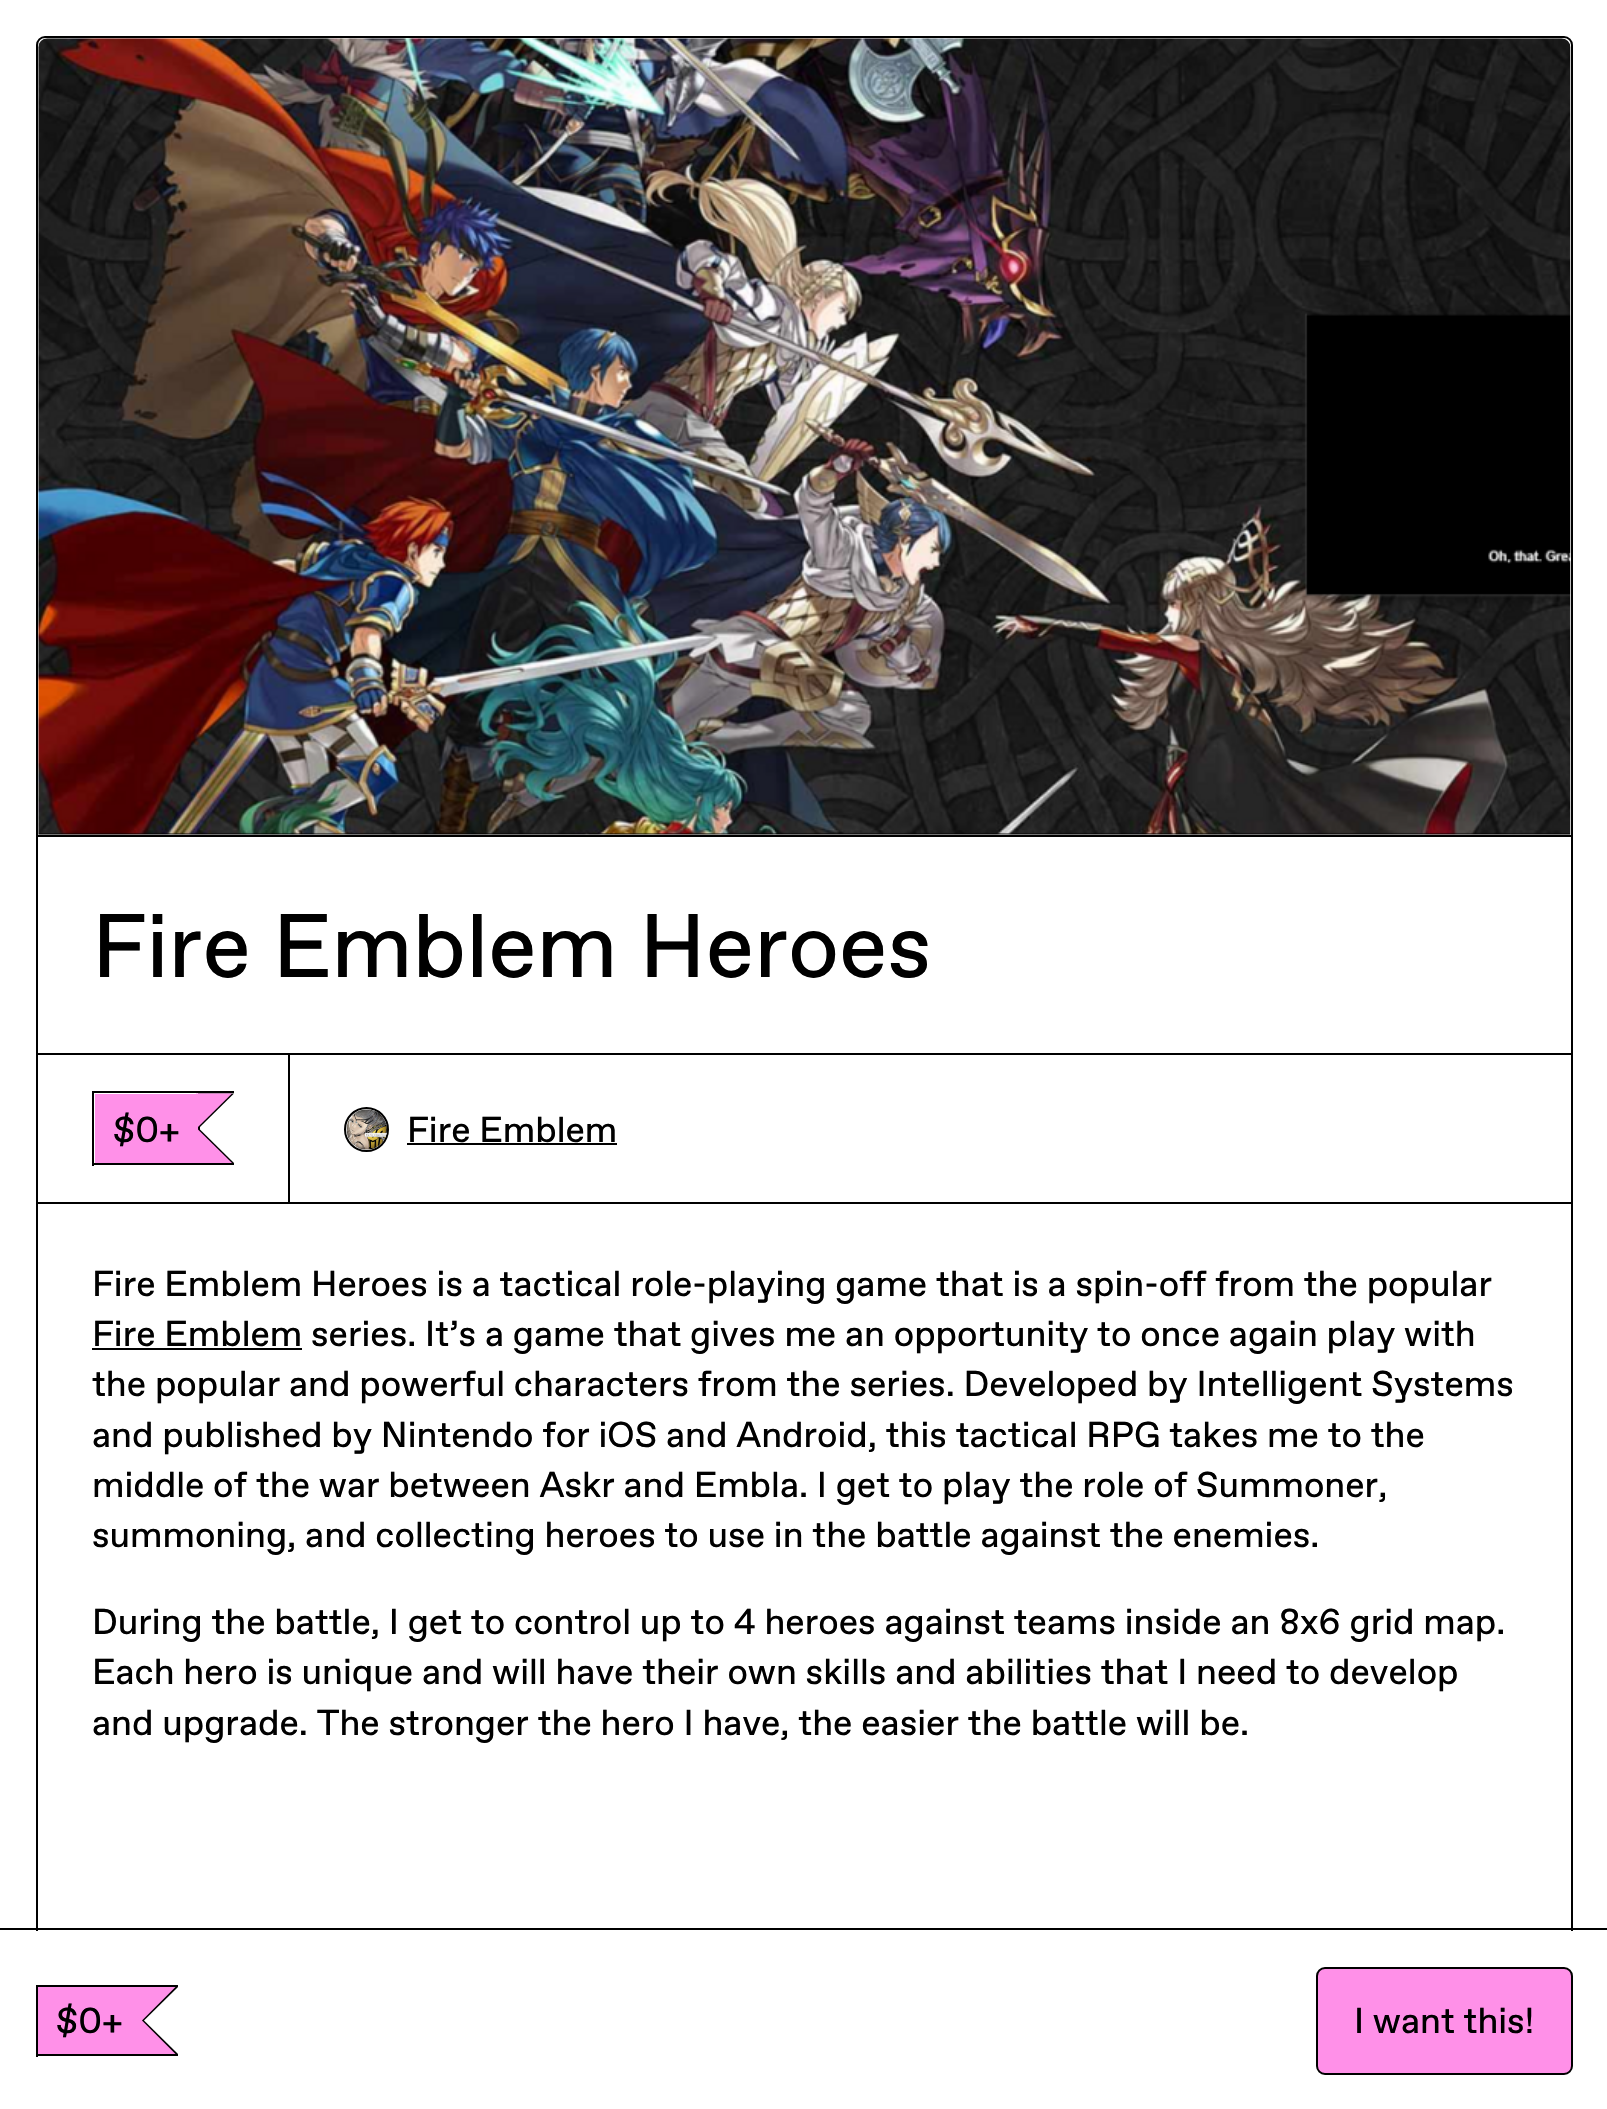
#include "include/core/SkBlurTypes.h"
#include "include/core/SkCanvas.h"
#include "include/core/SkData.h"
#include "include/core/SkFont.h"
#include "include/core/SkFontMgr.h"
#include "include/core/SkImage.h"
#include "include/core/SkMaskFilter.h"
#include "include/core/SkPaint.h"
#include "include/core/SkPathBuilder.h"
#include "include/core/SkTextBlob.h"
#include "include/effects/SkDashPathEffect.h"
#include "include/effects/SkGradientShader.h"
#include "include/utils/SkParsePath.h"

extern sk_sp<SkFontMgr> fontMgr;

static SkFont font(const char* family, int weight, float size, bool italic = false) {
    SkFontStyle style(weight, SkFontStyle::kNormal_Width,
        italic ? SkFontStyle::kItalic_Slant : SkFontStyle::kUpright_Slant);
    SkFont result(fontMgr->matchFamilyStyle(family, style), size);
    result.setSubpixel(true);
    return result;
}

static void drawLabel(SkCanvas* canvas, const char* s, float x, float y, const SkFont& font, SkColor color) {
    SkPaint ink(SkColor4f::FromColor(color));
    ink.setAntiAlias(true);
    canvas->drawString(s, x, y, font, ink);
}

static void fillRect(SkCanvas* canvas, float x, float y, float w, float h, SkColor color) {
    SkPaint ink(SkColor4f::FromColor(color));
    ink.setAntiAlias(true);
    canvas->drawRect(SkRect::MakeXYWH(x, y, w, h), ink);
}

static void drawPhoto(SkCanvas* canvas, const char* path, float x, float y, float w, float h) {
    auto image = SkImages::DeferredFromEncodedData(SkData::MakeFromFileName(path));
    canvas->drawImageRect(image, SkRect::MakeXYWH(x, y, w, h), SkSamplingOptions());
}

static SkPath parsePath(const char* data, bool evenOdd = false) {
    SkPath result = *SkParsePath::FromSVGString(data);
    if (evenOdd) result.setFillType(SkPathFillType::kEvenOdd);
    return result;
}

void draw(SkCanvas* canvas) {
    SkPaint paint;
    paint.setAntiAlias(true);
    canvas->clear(0xFFFFFFFF);
    paint.setStroke(true);
    paint.setStrokeWidth(2);
    paint.setColor(0xFF000000);
    canvas->drawRoundRect(SkRect::MakeXYWH(37, 37, 1535, 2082), 8, 8, paint);
    drawPhoto(canvas, "assets/img1.png", 60, 38, 1489, 1);
    fillRect(canvas, 38, 835, 1533, 2, 0xFF000000);
    drawPhoto(canvas, "assets/img2.png", 38, 38, 1533, 797);
    SkFont font1 = font("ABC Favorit", 400, 90);
    drawLabel(canvas, "Fire Emblem Heroes", 92, 977, font1, 0xFF000000);
    fillRect(canvas, 290, 1053, 1281, 2, 0xFF000000);
    canvas->drawRect(SkRect::MakeXYWH(37, 1054, 252, 149), paint);
    fillRect(canvas, 92, 1091, 142, 2, 0xFF000000);
    fillRect(canvas, 92, 1163, 142, 2, 0xFF000000);
    fillRect(canvas, 92, 1091, 2, 75, 0xFF000000);
    fillRect(canvas, 95, 1094, 103, 69, 0xFFFF90E8);
    paint.setStroke(false);
    canvas->drawPath(parsePath("M198 1093.5H234L200 1127Z"), paint);
    canvas->drawPath(parsePath("M234 1163H198L200 1129.5Z"), paint);
    fillRect(canvas, 198, 1125, 2, 7, 0xFF000000);
    paint.setColor(0xFFFF90E8);
    canvas->drawPath(parsePath("M196 1093.5H232L198 1127Z"), paint);
    canvas->drawPath(parsePath("M232 1163H196L198 1129.5Z"), paint);
    SkFont font2 = font("ABC Favorit", 400, 36);
    drawLabel(canvas, "$0+", 113, 1142, font2, 0xFF000000);
    paint.setStroke(true);
    paint.setColor(0xFF000000);
    canvas->drawCircle(366.5f, 1129.5f, 21.5f, paint);
    drawPhoto(canvas, "assets/img3.png", 346, 1109, 41, 41);
    drawLabel(canvas, "Fire Emblem", 407, 1142, font2, 0xFF000000);
    fillRect(canvas, 407, 1143, 210, 2, 0xFF000000);
    fillRect(canvas, 290, 1202, 1281, 2, 0xFF000000);
    drawLabel(canvas, "Fire Emblem Heroes is a tactical role-playing game that is a spin-off from the popular", 92, 1296, font2, 0xFF000000);
    fillRect(canvas, 92, 1348, 210, 2, 0xFF000000);
    drawLabel(canvas, "Fire Emblem series. It’s a game that gives me an opportunity to once again play with", 92, 1346, font2, 0xFF000000);
    drawLabel(canvas, "the popular and powerful characters from the series. Developed by Intelligent Systems", 92, 1396, font2, 0xFF000000);
    drawLabel(canvas, "and published by Nintendo for iOS and Android, this tactical RPG takes me to the", 92, 1447, font2, 0xFF000000);
    drawLabel(canvas, "middle of the war between Askr and Embla. I get to play the role of Summoner,", 92, 1497, font2, 0xFF000000);
    drawLabel(canvas, "summoning, and collecting heroes to use in the battle against the enemies.", 92, 1547, font2, 0xFF000000);
    drawLabel(canvas, "During the battle, I get to control up to 4 heroes against teams inside an 8x6 grid map.", 92, 1634, font2, 0xFF000000);
    drawLabel(canvas, "Each hero is unique and will have their own skills and abilities that I need to develop", 92, 1684, font2, 0xFF000000);
    drawLabel(canvas, "and upgrade. The stronger the hero I have, the easier the battle will be.", 92, 1735, font2, 0xFF000000);
    paint.setStroke(false);
    canvas->drawPath(parsePath("M0 1928V1930H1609V2108V1928Z"), paint);
    fillRect(canvas, 36, 1931, 1537, 178, 0xFFFFFFFF);
    fillRect(canvas, 36, 1985, 142, 2, 0xFF000000);
    fillRect(canvas, 36, 2054, 142, 2, 0xFF000000);
    fillRect(canvas, 36, 1985, 2, 72, 0xFF000000);
    fillRect(canvas, 38, 1987, 104, 67, 0xFFFF90E8);
    canvas->drawPath(parsePath("M142 1987H178L144 2020.5Z"), paint);
    canvas->drawPath(parsePath("M178 2054H142L144 2020.5Z"), paint);
    fillRect(canvas, 142, 2018, 2, 5, 0xFF000000);
    paint.setColor(0xFFFF90E8);
    canvas->drawPath(parsePath("M139.5 1987H175.5L142 2020.5Z"), paint);
    canvas->drawPath(parsePath("M175.5 2054H139.5L142 2020.5Z"), paint);
    drawLabel(canvas, "$0+", 56, 2033, font2, 0xFF000000);
    canvas->drawRoundRect(SkRect::MakeXYWH(1317, 1968, 255, 106), 8, 8, paint);
    paint.setStroke(true);
    paint.setColor(0xFF000000);
    canvas->drawRoundRect(SkRect::MakeXYWH(1317, 1968, 255, 106), 8, 8, paint);
    drawLabel(canvas, "I want this!", 1354, 2033, font2, 0xFF000000);
}
